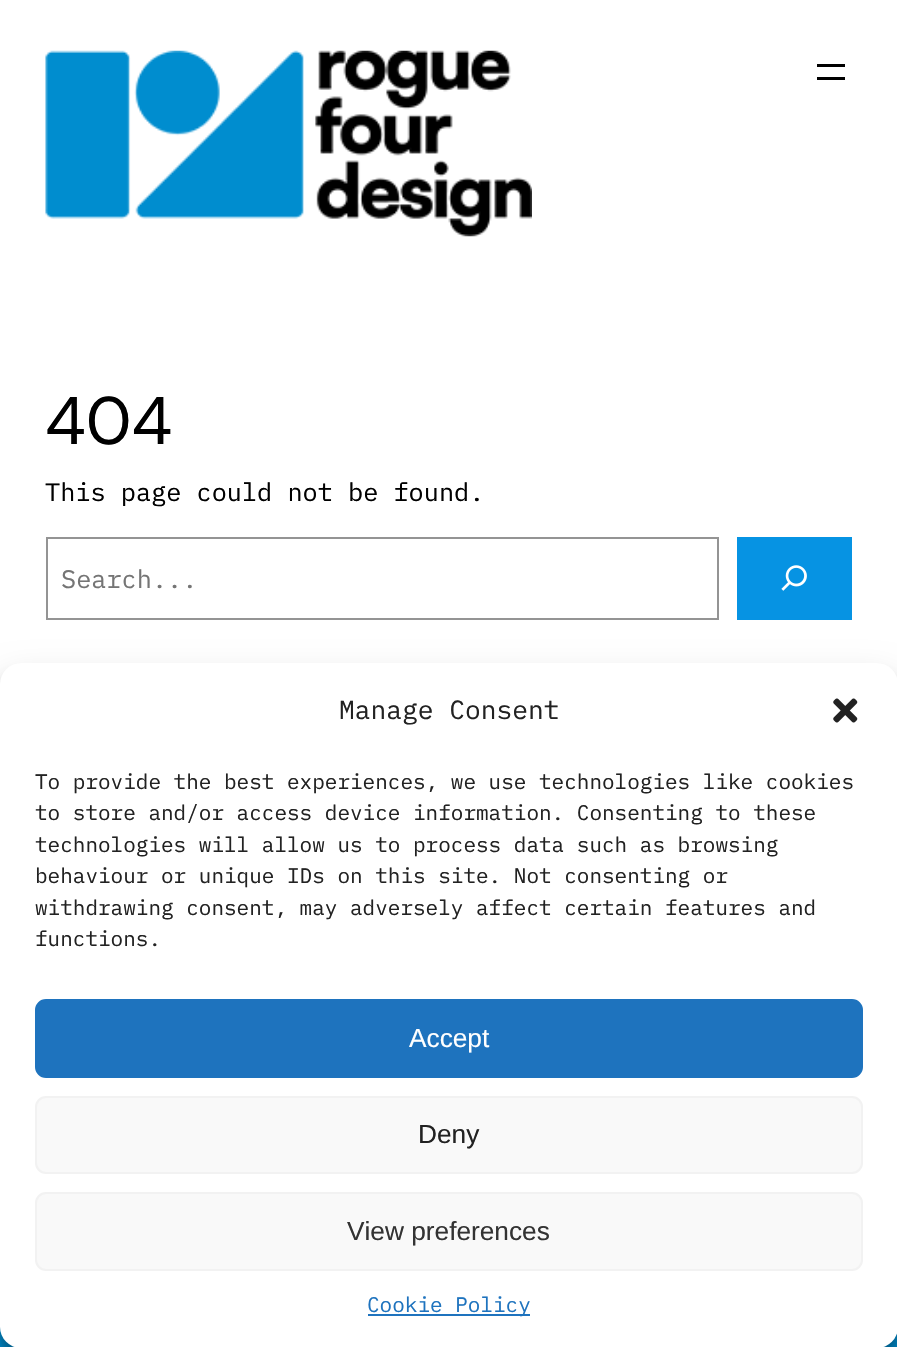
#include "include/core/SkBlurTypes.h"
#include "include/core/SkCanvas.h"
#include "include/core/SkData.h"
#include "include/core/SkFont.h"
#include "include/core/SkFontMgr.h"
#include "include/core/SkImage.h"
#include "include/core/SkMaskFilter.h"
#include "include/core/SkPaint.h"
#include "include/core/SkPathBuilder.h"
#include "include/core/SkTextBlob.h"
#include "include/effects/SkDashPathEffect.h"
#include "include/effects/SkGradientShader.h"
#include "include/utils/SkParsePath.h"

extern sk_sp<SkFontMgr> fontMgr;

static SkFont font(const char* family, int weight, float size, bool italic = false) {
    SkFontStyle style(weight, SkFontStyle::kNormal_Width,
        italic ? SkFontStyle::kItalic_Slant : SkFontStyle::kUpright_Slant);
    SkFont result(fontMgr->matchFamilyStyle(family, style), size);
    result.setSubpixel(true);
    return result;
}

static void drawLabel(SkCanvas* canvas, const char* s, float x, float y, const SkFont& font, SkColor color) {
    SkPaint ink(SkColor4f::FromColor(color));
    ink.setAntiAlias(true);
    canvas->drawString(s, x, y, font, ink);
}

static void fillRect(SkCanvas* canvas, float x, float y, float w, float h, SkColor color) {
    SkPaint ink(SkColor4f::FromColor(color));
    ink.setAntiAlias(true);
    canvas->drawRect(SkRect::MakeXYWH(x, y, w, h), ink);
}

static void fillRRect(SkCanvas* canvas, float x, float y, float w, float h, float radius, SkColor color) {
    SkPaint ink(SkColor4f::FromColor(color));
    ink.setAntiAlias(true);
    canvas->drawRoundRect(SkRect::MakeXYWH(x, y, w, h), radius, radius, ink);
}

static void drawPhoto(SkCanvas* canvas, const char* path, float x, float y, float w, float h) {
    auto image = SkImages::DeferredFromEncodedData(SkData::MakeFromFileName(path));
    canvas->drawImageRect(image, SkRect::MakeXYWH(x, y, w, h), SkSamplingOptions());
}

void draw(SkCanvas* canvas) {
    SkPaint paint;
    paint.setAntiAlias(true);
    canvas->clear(0xFFFFFFFF);
    drawPhoto(canvas, "assets/img1.png", 45, 50, 487, 187);
    fillRect(canvas, 817, 64, 28, 3, 0xFF000000);
    fillRect(canvas, 817, 77, 28, 3, 0xFF000000);
    SkFont font1 = font("DM Sans", 400, 67);
    drawLabel(canvas, "404", 45, 444, font1, 0xFF000000);
    SkFont font2 = font("IBM Plex Mono", 400, 25.25f);
    drawLabel(canvas, "This page could not be found.", 45, 501, font2, 0xFF000000);
    paint.setStroke(true);
    paint.setStrokeWidth(2);
    paint.setColor(0xFF949494);
    canvas->drawRect(SkRect::MakeXYWH(47, 538, 671, 81), paint);
    drawLabel(canvas, "Search...", 61, 588, font2, 0xFF757575);
    fillRect(canvas, 737, 537, 115, 83, 0xFF0693E3);
    drawPhoto(canvas, "assets/img2.png", 781, 565, 26, 26);
    fillRect(canvas, 0, 1327, 897, 20, 0xFF008DCF);
    paint.setStroke(false);
    paint.setColor(0x3B000000);
    paint.setMaskFilter(SkMaskFilter::MakeBlur(kNormal_SkBlurStyle, 5));
    canvas->drawRoundRect(SkRect::MakeXYWH(0, 674, 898, 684), 21, 21, paint);
    paint.setMaskFilter(nullptr);
    paint.setColor(0x30000000);
    paint.setMaskFilter(SkMaskFilter::MakeBlur(kNormal_SkBlurStyle, 17.5f));
    canvas->drawRoundRect(SkRect::MakeXYWH(0, 681, 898, 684), 21, 21, paint);
    paint.setMaskFilter(nullptr);
    fillRRect(canvas, 0, 663, 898, 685, 21, 0xFFFFFFFF);
    SkFont font3 = font("IBM Plex Mono", 400, 26.25f);
    drawLabel(canvas, "Manage Consent", 339, 719, font3, 0xFF222222);
    drawPhoto(canvas, "assets/img3.png", 833, 698, 25, 25);
    SkFont font4 = font("IBM Plex Mono", 400, 21);
    drawLabel(canvas, "To provide the best experiences, we use technologies like cookies", 35, 789, font4, 0xFF222222);
    drawLabel(canvas, "to store and/or access device information. Consenting to these", 35, 820, font4, 0xFF222222);
    drawLabel(canvas, "technologies will allow us to process data such as browsing", 35, 852, font4, 0xFF222222);
    drawLabel(canvas, "behaviour or unique IDs on this site. Not consenting or", 35, 883, font4, 0xFF222222);
    drawLabel(canvas, "withdrawing consent, may adversely affect certain features and", 35, 915, font4, 0xFF222222);
    drawLabel(canvas, "functions.", 35, 946, font4, 0xFF222222);
    paint.setColor(0xFF1E73BE);
    canvas->drawRoundRect(SkRect::MakeXYWH(36, 1000, 826, 77), 10, 10, paint);
    paint.setStroke(true);
    canvas->drawRoundRect(SkRect::MakeXYWH(36, 1000, 826, 77), 10, 10, paint);
    SkFont font5 = font("Liberation Sans", 400, 26.25f);
    drawLabel(canvas, "Accept", 409, 1047, font5, 0xFFFFFFFF);
    paint.setStroke(false);
    paint.setColor(0xFFF9F9F9);
    canvas->drawRoundRect(SkRect::MakeXYWH(36, 1097, 826, 76), 10, 10, paint);
    paint.setStroke(true);
    paint.setColor(0xFFF2F2F2);
    canvas->drawRoundRect(SkRect::MakeXYWH(36, 1097, 826, 76), 10, 10, paint);
    drawLabel(canvas, "Deny", 418, 1143, font5, 0xFF222222);
    paint.setStroke(false);
    paint.setColor(0xFFF9F9F9);
    canvas->drawRoundRect(SkRect::MakeXYWH(36, 1193, 826, 77), 10, 10, paint);
    paint.setStroke(true);
    paint.setColor(0xFFF2F2F2);
    canvas->drawRoundRect(SkRect::MakeXYWH(36, 1193, 826, 77), 10, 10, paint);
    drawLabel(canvas, "View preferences", 347, 1240, font5, 0xFF333333);
    fillRect(canvas, 368, 1314, 162, 2, 0xFF1E73BE);
    drawLabel(canvas, "Cookie Policy", 367, 1312, font4, 0xFF1E73BE);
}
